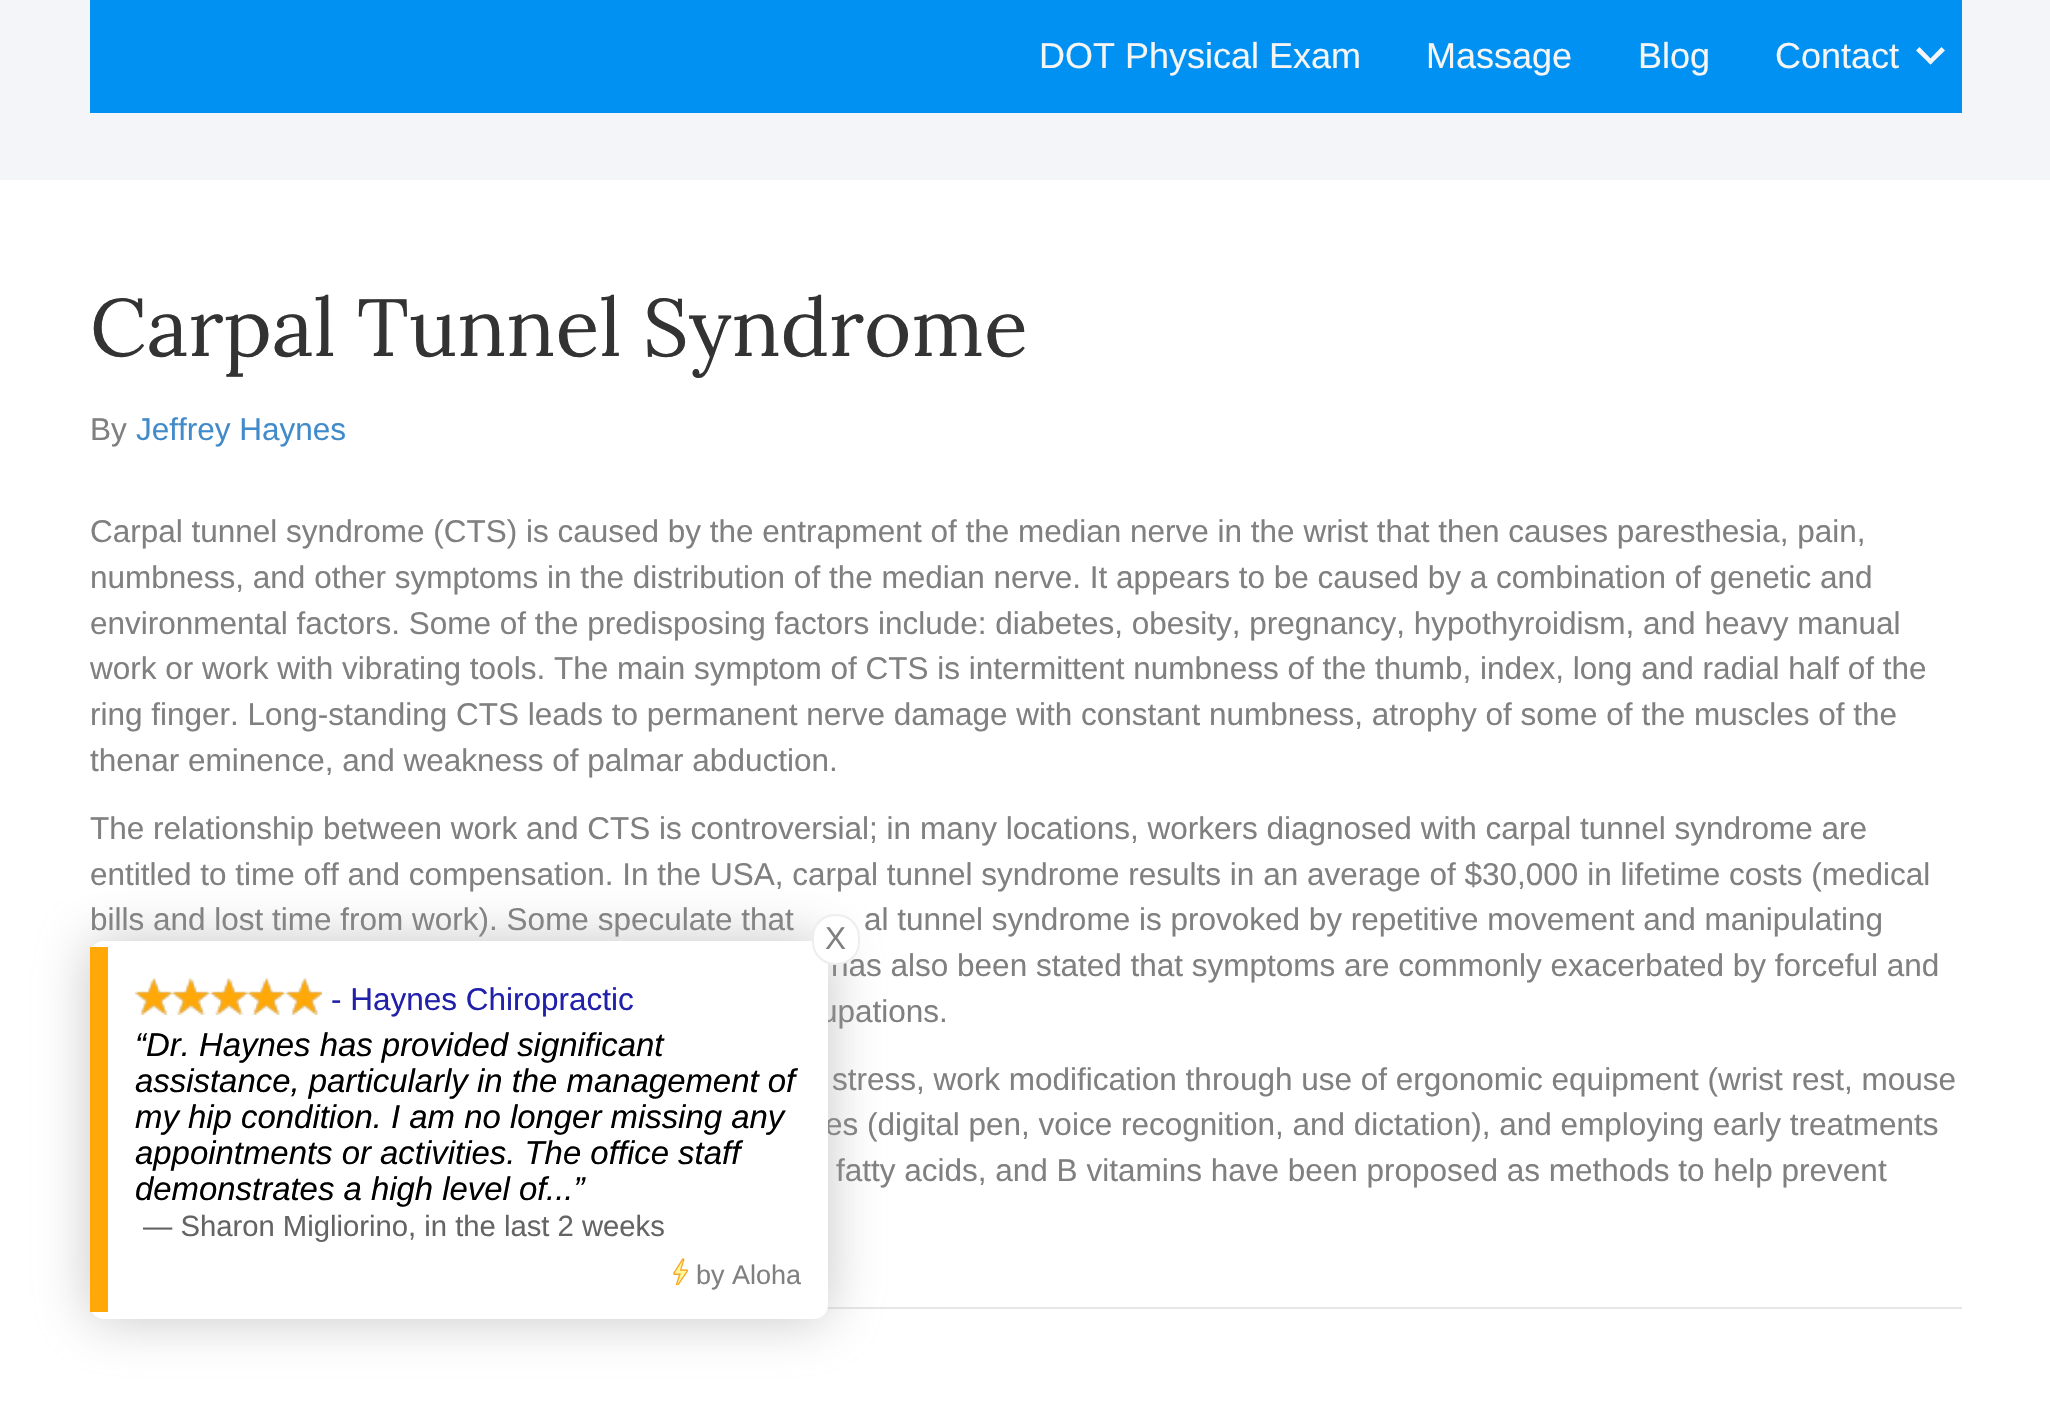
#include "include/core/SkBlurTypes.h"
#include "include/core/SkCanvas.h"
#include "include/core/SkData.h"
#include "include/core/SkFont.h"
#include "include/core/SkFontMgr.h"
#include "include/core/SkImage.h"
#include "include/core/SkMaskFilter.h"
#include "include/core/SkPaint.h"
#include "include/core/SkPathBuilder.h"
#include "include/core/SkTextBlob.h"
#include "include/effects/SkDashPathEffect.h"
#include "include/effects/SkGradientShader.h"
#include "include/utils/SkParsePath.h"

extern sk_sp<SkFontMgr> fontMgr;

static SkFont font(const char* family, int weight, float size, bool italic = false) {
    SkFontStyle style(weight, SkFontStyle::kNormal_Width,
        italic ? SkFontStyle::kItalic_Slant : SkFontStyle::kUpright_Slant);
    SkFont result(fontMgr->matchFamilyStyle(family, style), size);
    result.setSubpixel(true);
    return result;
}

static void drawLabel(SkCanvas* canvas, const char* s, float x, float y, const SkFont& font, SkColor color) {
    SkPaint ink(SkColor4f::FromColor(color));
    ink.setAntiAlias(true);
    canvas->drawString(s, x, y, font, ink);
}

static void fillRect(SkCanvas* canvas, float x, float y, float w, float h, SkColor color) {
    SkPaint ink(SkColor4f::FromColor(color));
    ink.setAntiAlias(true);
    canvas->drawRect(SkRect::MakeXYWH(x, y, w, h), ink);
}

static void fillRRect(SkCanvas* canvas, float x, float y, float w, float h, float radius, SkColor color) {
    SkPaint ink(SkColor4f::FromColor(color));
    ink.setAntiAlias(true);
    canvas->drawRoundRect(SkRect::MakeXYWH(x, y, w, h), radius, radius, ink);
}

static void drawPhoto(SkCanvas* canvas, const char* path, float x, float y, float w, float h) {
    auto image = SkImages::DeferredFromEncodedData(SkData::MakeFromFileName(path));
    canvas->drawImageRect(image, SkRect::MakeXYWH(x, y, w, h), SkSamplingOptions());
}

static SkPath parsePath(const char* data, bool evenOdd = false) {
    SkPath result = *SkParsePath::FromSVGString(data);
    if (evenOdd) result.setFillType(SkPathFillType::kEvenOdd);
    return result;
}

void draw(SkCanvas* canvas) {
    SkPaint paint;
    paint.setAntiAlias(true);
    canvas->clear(0xFFFFFFFF);
    fillRect(canvas, 0, 0, 2050, 180, 0xFFF4F5F9);
    fillRect(canvas, 90, 0, 1872, 113, 0xFF0091F2);
    SkFont font1 = font("Liberation Sans", 400, 36);
    drawLabel(canvas, "DOT Physical Exam", 1039, 68, font1, 0xFFF5F5F5);
    drawLabel(canvas, "Massage", 1426, 68, font1, 0xFFF5F5F5);
    drawLabel(canvas, "Blog", 1638, 68, font1, 0xFFF5F5F5);
    drawLabel(canvas, "Contact", 1775, 68, font1, 0xFFF5F5F5);
    paint.setColor(0xFFF5F5F5);
    canvas->drawPath(parsePath("M1941.5 47L1945 50.5L1930.5 64.5L1927.5 61.5Z"), paint);
    canvas->drawPath(parsePath("M1919.5 47L1933.5 61.5L1930.5 64.5L1916 50.5Z"), paint);
    SkFont font2 = font("Lora", 400, 81);
    drawLabel(canvas, "Carpal Tunnel Syndrome", 90, 356, font2, 0xFF333333);
    SkFont font3 = font("Liberation Sans", 400, 31.5f);
    drawLabel(canvas, "By", 90, 440, font3, 0xFF808080);
    drawLabel(canvas, "Jeffrey Haynes", 136, 440, font3, 0xFF428BCA);
    drawLabel(canvas, "Carpal tunnel syndrome (CTS) is caused by the entrapment of the median nerve in the wrist that then causes paresthesia, pain,", 90, 542, font3, 0xFF808080);
    drawLabel(canvas, "numbness, and other symptoms in the distribution of the median nerve. It appears to be caused by a combination of genetic and", 90, 588, font3, 0xFF808080);
    drawLabel(canvas, "environmental factors. Some of the predisposing factors include: diabetes, obesity, pregnancy, hypothyroidism, and heavy manual", 90, 634, font3, 0xFF808080);
    drawLabel(canvas, "work or work with vibrating tools. The main symptom of CTS is intermittent numbness of the thumb, index, long and radial half of the", 90, 679, font3, 0xFF808080);
    drawLabel(canvas, "ring finger. Long-standing CTS leads to permanent nerve damage with constant numbness, atrophy of some of the muscles of the", 90, 725, font3, 0xFF808080);
    drawLabel(canvas, "thenar eminence, and weakness of palmar abduction.", 90, 771, font3, 0xFF808080);
    drawLabel(canvas, "The relationship between work and CTS is controversial; in many locations, workers diagnosed with carpal tunnel syndrome are", 90, 839, font3, 0xFF808080);
    drawLabel(canvas, "entitled to time off and compensation. In the USA, carpal tunnel syndrome results in an average of $30,000 in lifetime costs (medical", 90, 885, font3, 0xFF808080);
    drawLabel(canvas, "bills and lost time from work). Some speculate that", 90, 930, font3, 0xFF808080);
    drawLabel(canvas, "al tunnel syndrome is provoked by repetitive movement and manipulating", 864, 930, font3, 0xFF808080);
    drawLabel(canvas, "has also been stated that symptoms are commonly exacerbated by forceful and", 831, 976, font3, 0xFF808080);
    drawLabel(canvas, "upations.", 820, 1022, font3, 0xFF808080);
    drawLabel(canvas, "stress, work modification through use of ergonomic equipment (wrist rest, mouse", 832, 1090, font3, 0xFF808080);
    drawLabel(canvas, "es (digital pen, voice recognition, and dictation), and employing early treatments", 825, 1135, font3, 0xFF808080);
    drawLabel(canvas, "fatty acids, and B vitamins have been proposed as methods to help prevent", 836, 1181, font3, 0xFF808080);
    fillRect(canvas, 827, 1307, 1135, 2, 0xFFE6E6E6);
    paint.setColor(0x99A0A0A0);
    paint.setMaskFilter(SkMaskFilter::MakeBlur(kNormal_SkBlurStyle, 27));
    canvas->drawRoundRect(SkRect::MakeXYWH(90, 941, 738, 378), 14, 14, paint);
    paint.setMaskFilter(nullptr);
    fillRRect(canvas, 90, 941, 738, 378, 14, 0xFFFFFFFF);
    fillRect(canvas, 90, 947, 18, 365, 0xFFFFA808);
    paint.setColor(0xFFFFFFFF);
    canvas->drawRoundRect(SkRect::MakeXYWH(813, 915, 46, 49), 22, 22, paint);
    paint.setStroke(true);
    paint.setStrokeWidth(2);
    paint.setColor(0xFFEEEEEE);
    canvas->drawRoundRect(SkRect::MakeXYWH(813, 915, 46, 49), 22, 22, paint);
    drawLabel(canvas, "X", 825, 949, font3, 0xFF808080);
    drawPhoto(canvas, "assets/img1.png", 135, 978, 187, 37);
    drawPhoto(canvas, "assets/img2.png", 135, 978, 187, 37);
    drawLabel(canvas, "- Haynes Chiropractic", 331, 1010, font3, 0xFF2020AA);
    SkFont font4 = font("Liberation Sans", 400, 32.9f, true);
    drawLabel(canvas, "“Dr. Haynes has provided significant", 135, 1056, font4, 0xFF000000);
    drawLabel(canvas, "assistance, particularly in the management of", 135, 1092, font4, 0xFF000000);
    drawLabel(canvas, "my hip condition. I am no longer missing any", 135, 1128, font4, 0xFF000000);
    drawLabel(canvas, "appointments or activities. The office staff", 135, 1164, font4, 0xFF000000);
    drawLabel(canvas, "demonstrates a high level of", 135, 1200, font4, 0xFF000000);
    drawLabel(canvas, "...”", 546, 1200, font4, 0xFF000000);
    SkFont font5 = font("Liberation Sans", 400, 29.25f);
    drawLabel(canvas, "— Sharon Migliorino, in the last 2 weeks", 143, 1236, font5, 0xFF646464);
    drawPhoto(canvas, "assets/img3.png", 673, 1258, 15, 27);
    SkFont font6 = font("Liberation Sans", 400, 27);
    drawLabel(canvas, "by Aloha", 696, 1284, font6, 0xFF808080);
}
